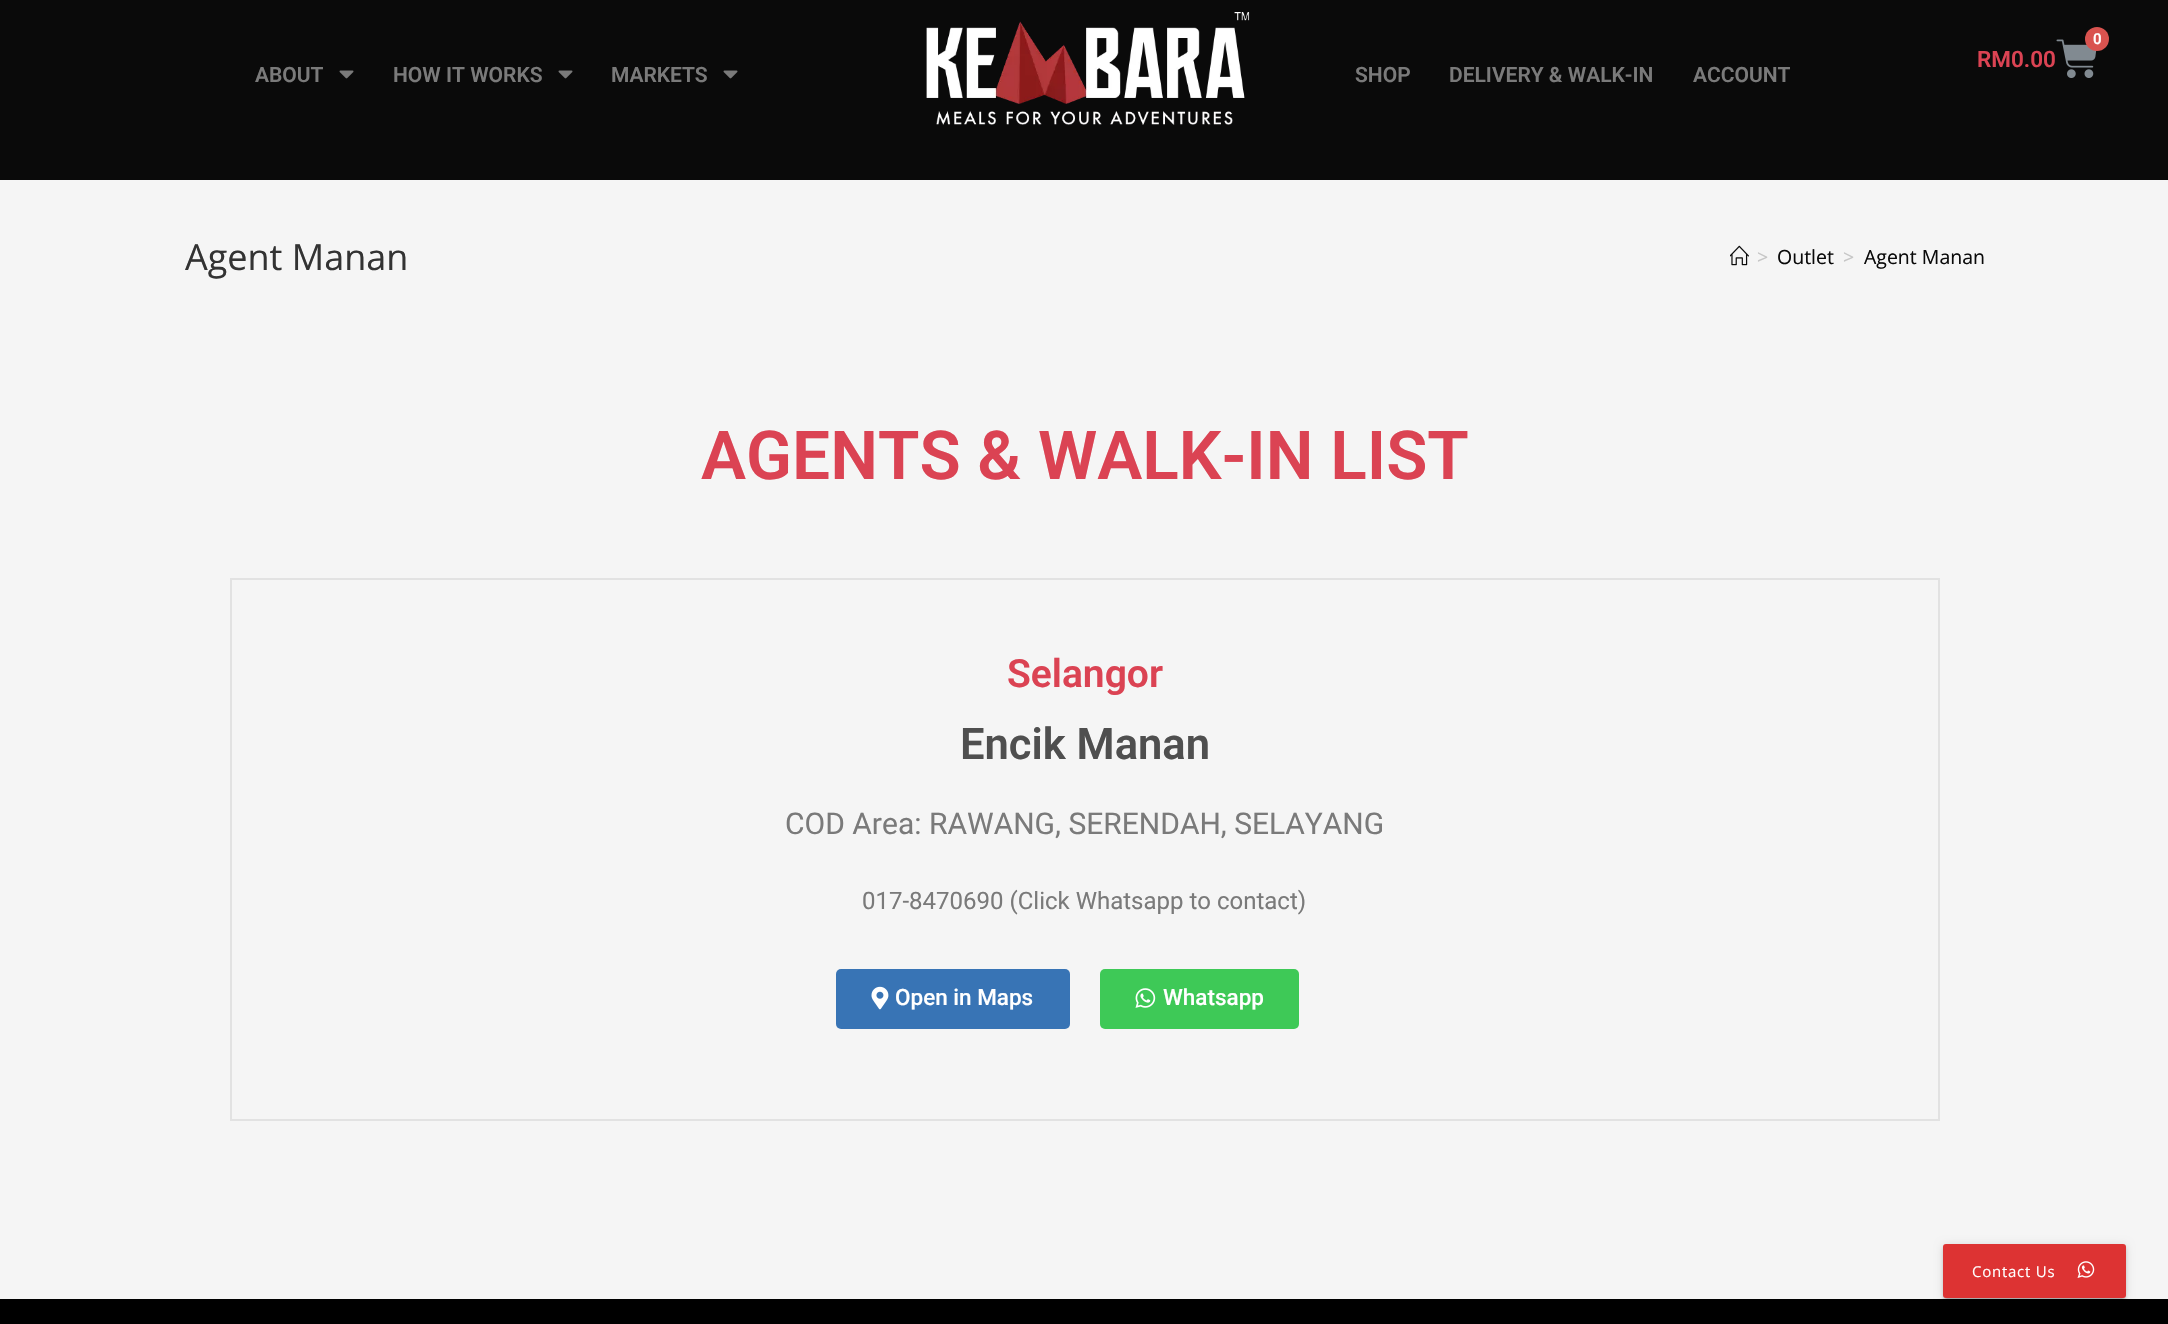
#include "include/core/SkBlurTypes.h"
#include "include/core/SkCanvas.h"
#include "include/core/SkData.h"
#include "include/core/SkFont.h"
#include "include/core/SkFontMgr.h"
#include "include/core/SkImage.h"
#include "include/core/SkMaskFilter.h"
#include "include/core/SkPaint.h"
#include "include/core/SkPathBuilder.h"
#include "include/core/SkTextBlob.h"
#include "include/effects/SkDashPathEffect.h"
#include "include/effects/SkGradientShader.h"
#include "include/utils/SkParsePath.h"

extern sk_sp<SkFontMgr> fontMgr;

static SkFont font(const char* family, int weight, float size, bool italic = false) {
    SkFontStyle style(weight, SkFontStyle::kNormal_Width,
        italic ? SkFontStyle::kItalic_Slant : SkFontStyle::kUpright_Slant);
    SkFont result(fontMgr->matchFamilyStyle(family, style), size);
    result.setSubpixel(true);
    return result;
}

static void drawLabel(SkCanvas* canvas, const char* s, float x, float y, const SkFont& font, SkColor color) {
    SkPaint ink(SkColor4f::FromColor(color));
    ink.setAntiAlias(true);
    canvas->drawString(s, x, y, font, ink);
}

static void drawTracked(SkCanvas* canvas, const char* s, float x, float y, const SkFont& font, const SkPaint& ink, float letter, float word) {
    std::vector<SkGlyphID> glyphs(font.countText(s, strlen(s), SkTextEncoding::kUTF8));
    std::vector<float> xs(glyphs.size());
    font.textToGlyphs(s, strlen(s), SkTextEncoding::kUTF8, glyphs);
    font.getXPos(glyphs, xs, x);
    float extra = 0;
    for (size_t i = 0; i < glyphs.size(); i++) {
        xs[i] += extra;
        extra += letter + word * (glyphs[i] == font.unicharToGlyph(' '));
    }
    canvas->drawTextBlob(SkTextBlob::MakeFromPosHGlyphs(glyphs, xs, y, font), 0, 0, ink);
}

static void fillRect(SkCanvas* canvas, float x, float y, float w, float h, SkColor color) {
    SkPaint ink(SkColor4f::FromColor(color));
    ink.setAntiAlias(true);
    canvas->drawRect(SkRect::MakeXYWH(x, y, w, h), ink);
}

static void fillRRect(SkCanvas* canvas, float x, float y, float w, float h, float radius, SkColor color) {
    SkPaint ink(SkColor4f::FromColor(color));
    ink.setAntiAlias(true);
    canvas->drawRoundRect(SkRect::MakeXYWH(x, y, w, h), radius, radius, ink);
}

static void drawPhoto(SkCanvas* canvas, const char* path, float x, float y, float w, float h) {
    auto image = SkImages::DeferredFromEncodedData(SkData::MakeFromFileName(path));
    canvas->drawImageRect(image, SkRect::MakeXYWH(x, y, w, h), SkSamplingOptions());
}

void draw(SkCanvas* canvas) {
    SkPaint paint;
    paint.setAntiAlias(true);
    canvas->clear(0xFFF5F5F5);
    fillRect(canvas, 0, 0, 2168, 180, 0xFF0A0A0A);
    drawPhoto(canvas, "assets/img1.png", 926, 12, 324, 113);
    drawPhoto(canvas, "assets/img2.png", 2056, 39, 41, 39);
    paint.setColor(0xFFD9534F);
    canvas->drawCircle(2097, 39, 12, paint);
    SkFont font1 = font("Roboto", 600, 15);
    drawLabel(canvas, "0", 2093, 44, font1, 0xFFFFFFFF);
    SkFont font2 = font("Roboto", 600, 22.5f);
    drawLabel(canvas, "RM0.00", 1977, 67, font2, 0xFFDB4353);
    SkFont font3 = font("Roboto", 600, 21);
    drawLabel(canvas, "ABOUT", 255, 82, font3, 0xFF7A7A7A);
    drawPhoto(canvas, "assets/img3.png", 339, 70, 15, 9);
    drawLabel(canvas, "HOW IT WORKS", 393, 82, font3, 0xFF7A7A7A);
    drawPhoto(canvas, "assets/img3.png", 558, 70, 15, 9);
    drawLabel(canvas, "MARKETS", 611, 82, font3, 0xFF7A7A7A);
    drawPhoto(canvas, "assets/img3.png", 723, 70, 15, 9);
    drawLabel(canvas, "SHOP", 1355, 82, font3, 0xFF7A7A7A);
    drawLabel(canvas, "DELIVERY & WALK-IN", 1449, 82, font3, 0xFF7A7A7A);
    drawLabel(canvas, "ACCOUNT", 1693, 82, font3, 0xFF7A7A7A);
    SkFont font4 = font("Open Sans", 400, 36);
    drawLabel(canvas, "Agent Manan", 185, 270, font4, 0xFF333333);
    drawPhoto(canvas, "assets/img4.png", 1730, 245, 19, 21);
    SkFont font5 = font("Open Sans", 400, 19.5f);
    drawLabel(canvas, ">", 1757, 264, font5, 0xFFC6C6C6);
    drawLabel(canvas, "Outlet", 1777, 264, font5, 0xFF0A0A0A);
    drawLabel(canvas, ">", 1843, 264, font5, 0xFFC6C6C6);
    drawLabel(canvas, "Agent Manan", 1864, 264, font5, 0xFF0A0A0A);
    SkFont font6 = font("Roboto", 600, 67.5f);
    drawLabel(canvas, "AGENTS & WALK-IN LIST", 701, 479, font6, 0xFFDB4353);
    paint.setStroke(true);
    paint.setStrokeWidth(2);
    paint.setColor(0xFFE2E2E2);
    canvas->drawRect(SkRect::MakeXYWH(231, 579, 1708, 541), paint);
    SkFont font7 = font("Roboto", 600, 39);
    drawLabel(canvas, "Selangor", 1007, 687, font7, 0xFFDB4353);
    SkFont font8 = font("Roboto", 600, 43.5f);
    drawLabel(canvas, "Encik Manan", 960, 759, font8, 0xFF4F4F4F);
    SkFont font9 = font("Roboto", 400, 30);
    drawLabel(canvas, "COD Area: RAWANG, SERENDAH, SELAYANG", 785, 834, font9, 0xFF7A7A7A);
    SkFont font10 = font("Roboto", 400, 24);
    drawLabel(canvas, "017-8470690 (Click Whatsapp to contact)", 862, 909, font10, 0xFF7A7A7A);
    fillRRect(canvas, 836, 969, 234, 60, 5, 0xFF3874B5);
    drawPhoto(canvas, "assets/img5.png", 871, 986, 18, 24);
    SkFont font11 = font("Roboto", 500, 22.5f);
    drawLabel(canvas, "Open in Maps", 895, 1005, font11, 0xFFFFFFFF);
    fillRRect(canvas, 1100, 969, 199, 60, 5, 0xFF3EC957);
    drawPhoto(canvas, "assets/img6.png", 1135, 988, 21, 20);
    drawLabel(canvas, "Whatsapp", 1163, 1005, font11, 0xFFFFFFFF);
    fillRect(canvas, 0, 1299, 2168, 25, 0xFF000000);
    paint.setStroke(false);
    paint.setColor(0x33000000);
    paint.setMaskFilter(SkMaskFilter::MakeBlur(kNormal_SkBlurStyle, 1));
    canvas->drawRect(SkRect::MakeXYWH(1946, 1251, 177, 48), paint);
    paint.setMaskFilter(nullptr);
    paint.setColor(0x1F000000);
    paint.setMaskFilter(SkMaskFilter::MakeBlur(kNormal_SkBlurStyle, 4));
    canvas->drawRoundRect(SkRect::MakeXYWH(1943, 1245, 183, 54), 3, 3, paint);
    paint.setMaskFilter(nullptr);
    paint.setColor(0x24000000);
    paint.setMaskFilter(SkMaskFilter::MakeBlur(kNormal_SkBlurStyle, 1.5f));
    canvas->drawRoundRect(SkRect::MakeXYWH(1943, 1247, 183, 54), 3, 3, paint);
    paint.setMaskFilter(nullptr);
    fillRRect(canvas, 1943, 1244, 183, 54, 3, 0xFFDD3333);
    SkFont font12 = font("Open Sans", 400, 15);
    paint.setColor(0xFFFFFFFF);
    drawTracked(canvas, "Contact Us", 1972, 1277, font12, paint, 0.75f, 0);
    drawPhoto(canvas, "assets/img7.png", 2077, 1261, 18, 17);
}
